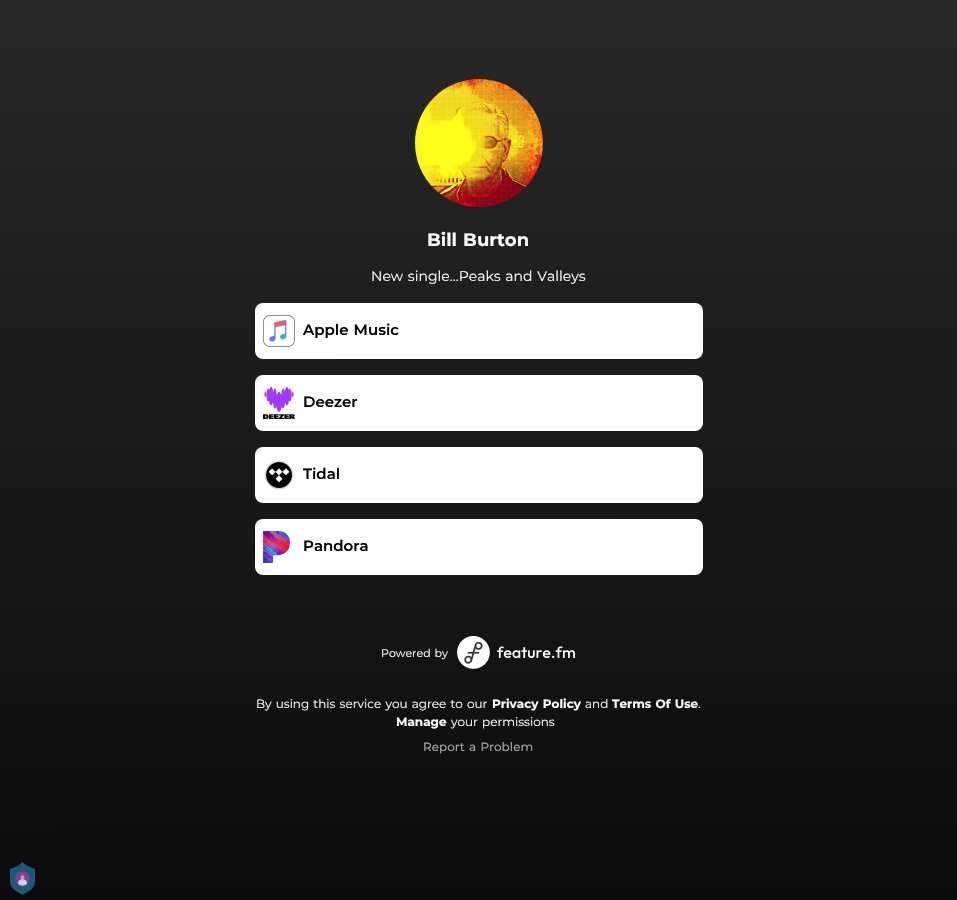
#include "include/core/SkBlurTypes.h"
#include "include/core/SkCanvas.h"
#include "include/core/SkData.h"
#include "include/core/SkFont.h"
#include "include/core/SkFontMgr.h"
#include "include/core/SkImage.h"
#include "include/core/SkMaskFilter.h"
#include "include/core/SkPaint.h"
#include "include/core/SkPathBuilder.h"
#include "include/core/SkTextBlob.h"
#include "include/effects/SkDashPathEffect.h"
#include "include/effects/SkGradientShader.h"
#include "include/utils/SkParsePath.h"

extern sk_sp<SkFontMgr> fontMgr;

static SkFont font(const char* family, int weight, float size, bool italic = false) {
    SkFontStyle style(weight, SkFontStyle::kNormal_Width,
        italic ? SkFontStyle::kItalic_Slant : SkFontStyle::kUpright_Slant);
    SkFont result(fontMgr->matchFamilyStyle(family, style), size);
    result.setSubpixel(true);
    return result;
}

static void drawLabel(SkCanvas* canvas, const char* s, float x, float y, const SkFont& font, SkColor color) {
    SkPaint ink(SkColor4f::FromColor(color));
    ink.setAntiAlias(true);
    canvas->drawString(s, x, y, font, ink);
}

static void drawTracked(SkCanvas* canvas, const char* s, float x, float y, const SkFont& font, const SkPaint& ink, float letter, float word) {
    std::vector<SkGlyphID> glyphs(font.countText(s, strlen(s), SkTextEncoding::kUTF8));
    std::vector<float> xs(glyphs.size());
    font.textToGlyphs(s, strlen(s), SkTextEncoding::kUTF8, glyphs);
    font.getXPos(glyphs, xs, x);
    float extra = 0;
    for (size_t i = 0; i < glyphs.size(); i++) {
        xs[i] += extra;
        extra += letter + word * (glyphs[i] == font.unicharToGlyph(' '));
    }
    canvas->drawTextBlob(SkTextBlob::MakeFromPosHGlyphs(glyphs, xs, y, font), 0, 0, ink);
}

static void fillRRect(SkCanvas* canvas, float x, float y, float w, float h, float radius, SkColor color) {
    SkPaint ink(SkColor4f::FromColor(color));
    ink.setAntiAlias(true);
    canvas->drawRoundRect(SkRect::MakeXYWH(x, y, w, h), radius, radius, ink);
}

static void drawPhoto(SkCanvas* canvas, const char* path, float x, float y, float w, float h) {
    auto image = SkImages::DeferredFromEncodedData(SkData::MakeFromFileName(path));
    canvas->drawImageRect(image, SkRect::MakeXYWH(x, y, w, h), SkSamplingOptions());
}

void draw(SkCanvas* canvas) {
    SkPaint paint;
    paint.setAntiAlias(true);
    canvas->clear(0xFFFFFFFF);
    {
        const SkColor colors[] = {0xFF282828, 0xFF040404};
        const float stops[] = {0, 1};
        const SkPoint ends[] = {{478, 0}, {479, 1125}};
        paint.setShader(SkGradientShader::MakeLinear(ends, colors, stops, 2, SkTileMode::kClamp));
        paint.setAlpha(255);
    }
    canvas->drawRect(SkRect::MakeXYWH(0, 0, 957, 900), paint);
    drawPhoto(canvas, "assets/img1.png", 415, 79, 128, 128);
    SkFont font1 = font("Montserrat", 700, 18);
    paint.setShader(nullptr);
    paint.setColor(0xFFFFFFFF);
    drawTracked(canvas, "Bill Burton", 427, 246, font1, paint, 0, 1);
    SkFont font2 = font("Montserrat", 400, 14);
    drawTracked(canvas, "New single...Peaks and Valleys", 371, 281, font2, paint, 0, 1);
    fillRRect(canvas, 255, 303, 448, 56, 8, 0xFFFFFFFF);
    drawPhoto(canvas, "assets/img2.png", 263, 315, 32, 32);
    SkFont font3 = font("Montserrat", 600, 15);
    paint.setColor(0xFF000000);
    drawTracked(canvas, "Apple Music", 303, 335, font3, paint, 0, 1);
    fillRRect(canvas, 255, 375, 448, 56, 8, 0xFFFFFFFF);
    drawPhoto(canvas, "assets/img3.png", 263, 387, 32, 32);
    drawLabel(canvas, "Deezer", 303, 407, font3, 0xFF000000);
    fillRRect(canvas, 255, 447, 448, 56, 8, 0xFFFFFFFF);
    drawPhoto(canvas, "assets/img4.png", 264, 460, 30, 30);
    drawLabel(canvas, "Tidal", 303, 479, font3, 0xFF000000);
    fillRRect(canvas, 255, 519, 448, 56, 8, 0xFFFFFFFF);
    drawPhoto(canvas, "assets/img5.png", 263, 531, 28, 32);
    drawLabel(canvas, "Pandora", 303, 551, font3, 0xFF000000);
    SkFont font4 = font("Montserrat", 400, 11);
    paint.setColor(0xFFFFFFFF);
    drawTracked(canvas, "Powered by", 381, 657, font4, paint, 0, 1);
    drawPhoto(canvas, "assets/img6.png", 457, 636, 118, 33);
    SkFont font5 = font("Montserrat", 400, 12);
    drawTracked(canvas, "By using this service you agree to our", 256, 708, font5, paint, 0, 1);
    SkFont font6 = font("Montserrat", 700, 12);
    drawTracked(canvas, "Privacy Policy", 492, 708, font6, paint, 0, 1);
    drawLabel(canvas, "and", 585, 708, font5, 0xFFFFFFFF);
    drawTracked(canvas, "Terms Of Use", 612, 708, font6, paint, 0, 1);
    drawLabel(canvas, ".", 698, 708, font5, 0xFFFFFFFF);
    drawLabel(canvas, "Manage", 396, 726, font6, 0xFFFFFFFF);
    drawTracked(canvas, "your permissions", 451, 726, font5, paint, 0, 1);
    SkFont font7 = font("Montserrat", 500, 12);
    paint.setColor(0xFF9F9F9F);
    drawTracked(canvas, "Report a Problem", 423, 751, font7, paint, 0, 1);
    drawPhoto(canvas, "assets/img7.png", 10, 862, 25, 33);
}
